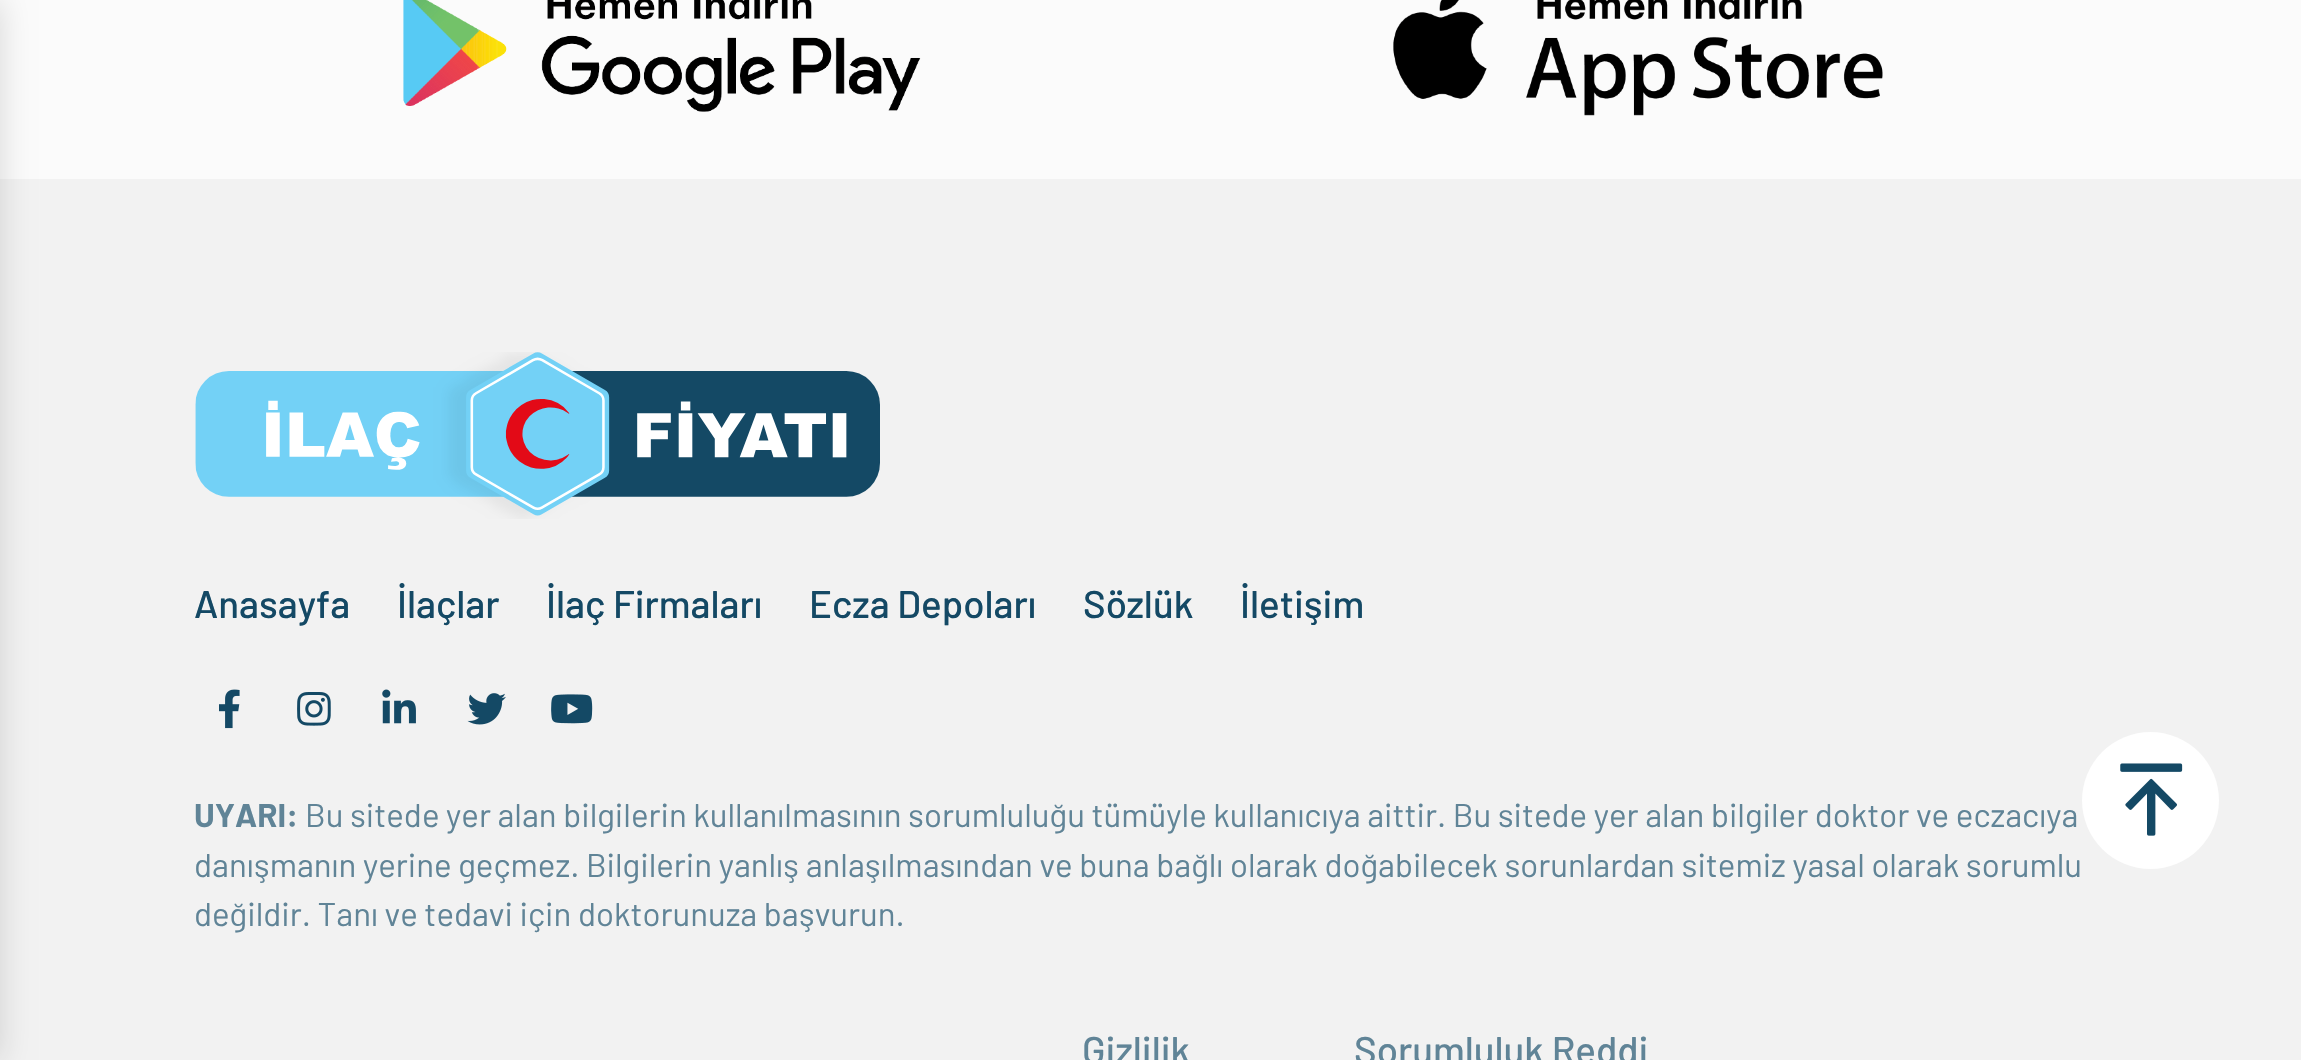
#include "include/core/SkBlurTypes.h"
#include "include/core/SkCanvas.h"
#include "include/core/SkData.h"
#include "include/core/SkFont.h"
#include "include/core/SkFontMgr.h"
#include "include/core/SkImage.h"
#include "include/core/SkMaskFilter.h"
#include "include/core/SkPaint.h"
#include "include/core/SkPathBuilder.h"
#include "include/core/SkTextBlob.h"
#include "include/effects/SkDashPathEffect.h"
#include "include/effects/SkGradientShader.h"
#include "include/utils/SkParsePath.h"

extern sk_sp<SkFontMgr> fontMgr;

static SkFont font(const char* family, int weight, float size, bool italic = false) {
    SkFontStyle style(weight, SkFontStyle::kNormal_Width,
        italic ? SkFontStyle::kItalic_Slant : SkFontStyle::kUpright_Slant);
    SkFont result(fontMgr->matchFamilyStyle(family, style), size);
    result.setSubpixel(true);
    return result;
}

static void drawLabel(SkCanvas* canvas, const char* s, float x, float y, const SkFont& font, SkColor color) {
    SkPaint ink(SkColor4f::FromColor(color));
    ink.setAntiAlias(true);
    canvas->drawString(s, x, y, font, ink);
}

static void fillRect(SkCanvas* canvas, float x, float y, float w, float h, SkColor color) {
    SkPaint ink(SkColor4f::FromColor(color));
    ink.setAntiAlias(true);
    canvas->drawRect(SkRect::MakeXYWH(x, y, w, h), ink);
}

static void drawPhoto(SkCanvas* canvas, const char* path, float x, float y, float w, float h) {
    auto image = SkImages::DeferredFromEncodedData(SkData::MakeFromFileName(path));
    canvas->drawImageRect(image, SkRect::MakeXYWH(x, y, w, h), SkSamplingOptions());
}

void draw(SkCanvas* canvas) {
    SkPaint paint;
    paint.setAntiAlias(true);
    canvas->clear(0xFFFBFBFB);
    fillRect(canvas, 0, 179, 2301, 881, 0xFFF2F2F2);
    paint.setColor(0x24000000);
    paint.setMaskFilter(SkMaskFilter::MakeBlur(kNormal_SkBlurStyle, 16.5f));
    canvas->drawRect(SkRect::MakeXYWH(-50, 0, 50, 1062), paint);
    paint.setMaskFilter(nullptr);
    drawPhoto(canvas, "assets/img1.png", 403, 0, 518, 112);
    drawPhoto(canvas, "assets/img2.png", 1393, 0, 490, 116);
    drawPhoto(canvas, "assets/img3.png", 195, 352, 685, 167);
    SkFont font1 = font("Barlow", 500, 38.5f);
    drawLabel(canvas, "Anasayfa", 194, 618, font1, 0xFF144965);
    drawLabel(canvas, "İlaçlar", 397, 618, font1, 0xFF144965);
    drawLabel(canvas, "İlaç Firmaları", 546, 618, font1, 0xFF144965);
    drawLabel(canvas, "Ecza Depoları", 809, 618, font1, 0xFF144965);
    drawLabel(canvas, "Sözlük", 1083, 618, font1, 0xFF144965);
    drawLabel(canvas, "İletişim", 1240, 618, font1, 0xFF144965);
    drawPhoto(canvas, "assets/img4.png", 219, 689, 21, 40);
    drawPhoto(canvas, "assets/img5.png", 297, 692, 34, 34);
    drawPhoto(canvas, "assets/img6.png", 382, 689, 34, 35);
    drawPhoto(canvas, "assets/img7.png", 467, 693, 39, 32);
    drawPhoto(canvas, "assets/img8.png", 551, 694, 42, 30);
    SkFont font2 = font("Barlow", 700, 33);
    drawLabel(canvas, "UYARI:", 194, 827, font2, 0xFF608497);
    SkFont font3 = font("Barlow", 400, 33);
    drawLabel(canvas, "Bu sitede yer alan bilgilerin kullanılmasının sorumluluğu tümüyle kullanıcıya aittir. Bu sitede yer alan bilgiler doktor ve eczacıya", 305, 827, font3, 0xFF608497);
    drawLabel(canvas, "danışmanın yerine geçmez. Bilgilerin yanlış anlaşılmasından ve buna bağlı olarak doğabilecek sorunlardan sitemiz yasal olarak sorumlu", 194, 877, font3, 0xFF608497);
    drawLabel(canvas, "değildir. Tanı ve tedavi için doktorunuza başvurun.", 194, 926, font3, 0xFF608497);
    drawLabel(canvas, "Gizlilik", 1082, 1064, font1, 0xFF608497);
    drawLabel(canvas, "Sorumluluk Reddi", 1354, 1064, font1, 0xFF608497);
    paint.setColor(0xFFFFFFFF);
    canvas->drawCircle(2150.5f, 800.5f, 68.5f, paint);
    drawPhoto(canvas, "assets/img9.png", 2120, 763, 63, 73);
}
